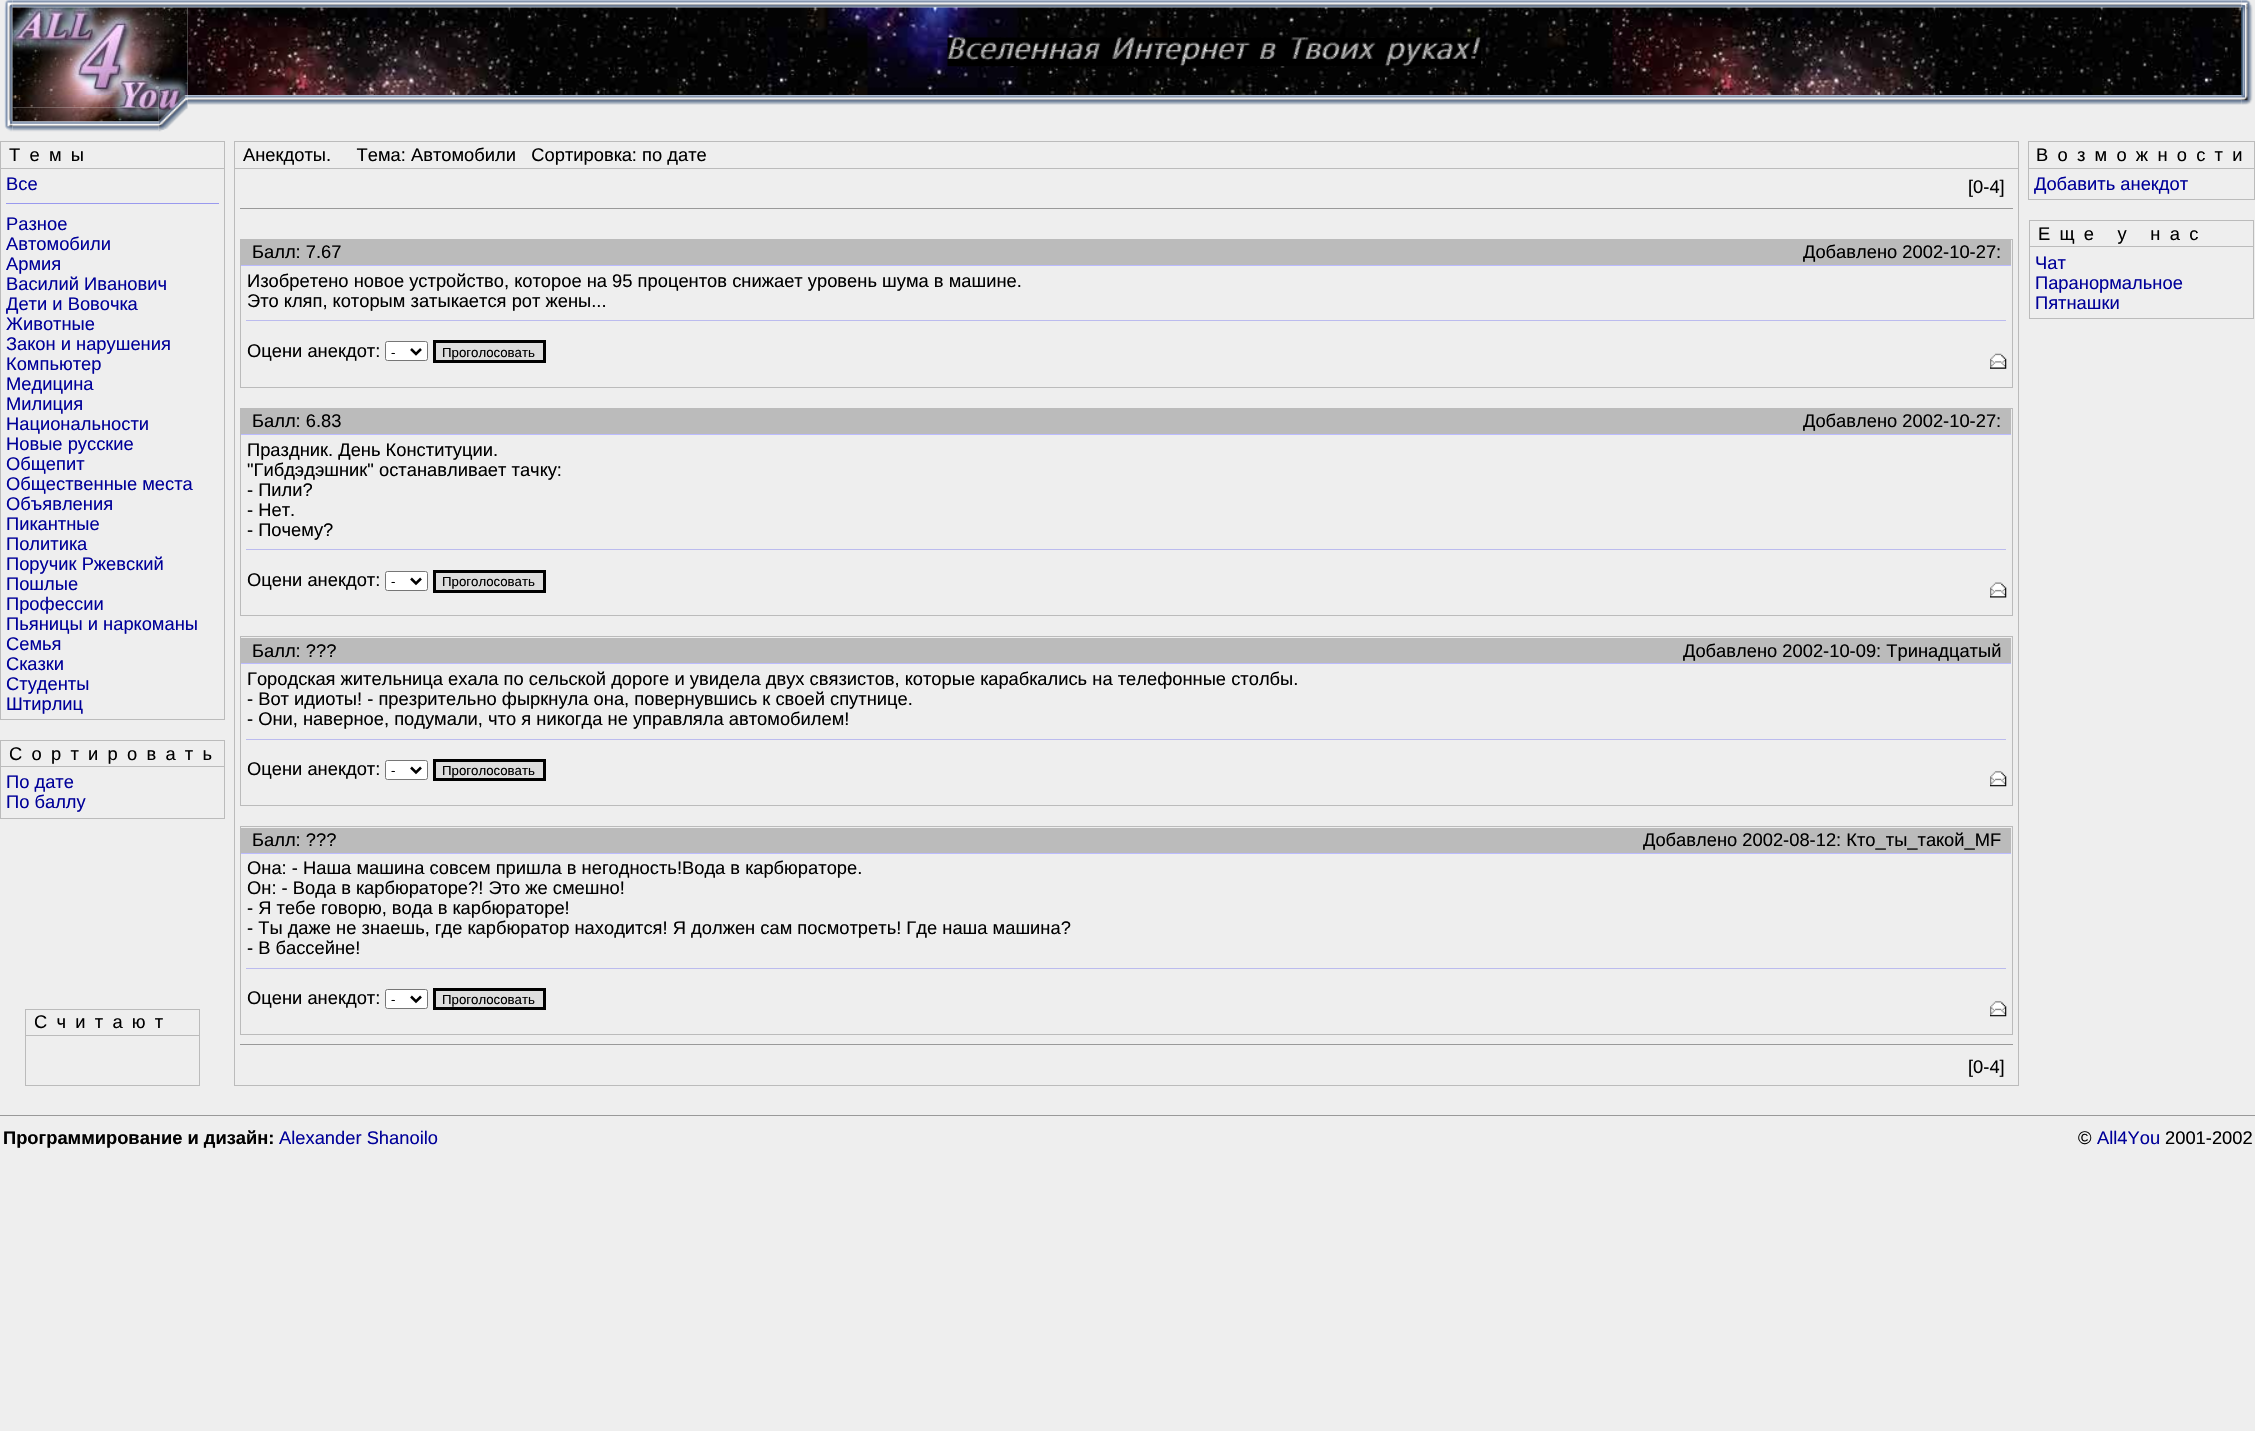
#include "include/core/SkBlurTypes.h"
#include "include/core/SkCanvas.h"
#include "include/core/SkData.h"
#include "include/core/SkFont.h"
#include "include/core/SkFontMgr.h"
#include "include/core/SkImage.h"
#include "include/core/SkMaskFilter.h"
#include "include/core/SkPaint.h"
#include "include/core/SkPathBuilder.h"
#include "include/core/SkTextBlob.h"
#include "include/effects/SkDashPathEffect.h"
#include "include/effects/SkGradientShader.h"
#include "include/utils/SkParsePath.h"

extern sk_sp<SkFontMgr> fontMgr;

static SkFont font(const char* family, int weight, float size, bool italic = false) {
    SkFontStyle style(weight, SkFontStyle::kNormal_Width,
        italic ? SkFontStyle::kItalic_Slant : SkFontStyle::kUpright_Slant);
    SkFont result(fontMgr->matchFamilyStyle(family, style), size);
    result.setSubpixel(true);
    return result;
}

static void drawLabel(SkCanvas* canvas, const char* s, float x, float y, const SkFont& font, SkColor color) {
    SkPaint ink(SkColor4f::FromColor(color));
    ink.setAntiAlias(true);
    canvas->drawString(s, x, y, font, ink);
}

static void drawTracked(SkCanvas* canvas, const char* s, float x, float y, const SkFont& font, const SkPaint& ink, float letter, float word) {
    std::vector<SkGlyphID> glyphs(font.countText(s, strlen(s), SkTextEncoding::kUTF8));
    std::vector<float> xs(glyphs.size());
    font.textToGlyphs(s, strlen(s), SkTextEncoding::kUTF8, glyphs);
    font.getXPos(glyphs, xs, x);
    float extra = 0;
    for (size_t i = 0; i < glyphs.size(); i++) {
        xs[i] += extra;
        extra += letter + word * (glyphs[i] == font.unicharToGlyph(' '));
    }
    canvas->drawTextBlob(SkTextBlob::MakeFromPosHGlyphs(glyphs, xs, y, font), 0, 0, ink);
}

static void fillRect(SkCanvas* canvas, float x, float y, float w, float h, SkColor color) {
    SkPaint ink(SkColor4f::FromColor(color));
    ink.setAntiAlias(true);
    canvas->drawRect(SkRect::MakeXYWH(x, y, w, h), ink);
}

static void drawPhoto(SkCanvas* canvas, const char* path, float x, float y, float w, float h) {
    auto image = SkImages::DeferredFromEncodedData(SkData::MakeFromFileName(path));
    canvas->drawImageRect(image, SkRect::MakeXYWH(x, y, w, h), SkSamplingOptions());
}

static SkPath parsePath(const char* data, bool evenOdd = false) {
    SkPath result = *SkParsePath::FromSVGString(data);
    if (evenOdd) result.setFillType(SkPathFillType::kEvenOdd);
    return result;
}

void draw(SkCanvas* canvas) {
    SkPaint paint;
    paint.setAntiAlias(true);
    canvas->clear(0xFFEEEEEE);
    drawPhoto(canvas, "assets/img2.png", 12, 0, 2229, 8);
    drawPhoto(canvas, "assets/img11.png", 12, 121, 147, 11);
    drawPhoto(canvas, "assets/img1.png", 4, 0, 9, 132);
    drawPhoto(canvas, "assets/img5.png", 187, 7, 2055, 88);
    drawPhoto(canvas, "assets/img9.png", 187, 95, 2055, 10);
    drawPhoto(canvas, "assets/img3.png", 2241, 0, 12, 105);
    drawPhoto(canvas, "assets/img4.png", 12, 7, 176, 88);
    drawPhoto(canvas, "assets/img6.png", 947, 37, 535, 30);
    drawPhoto(canvas, "assets/img7.png", 12, 95, 147, 13);
    drawPhoto(canvas, "assets/img8.png", 158, 95, 30, 37);
    drawPhoto(canvas, "assets/img10.png", 12, 107, 147, 15);
    paint.setStroke(true);
    paint.setStrokeWidth(1);
    paint.setColor(0xFFBBBBBB);
    canvas->drawRect(SkRect::MakeXYWH(0.5f, 141.5f, 224, 578), paint);
    SkFont font1 = font("Liberation Sans", 400, 18.33f);
    paint.setStroke(false);
    paint.setColor(0xFF000000);
    drawTracked(canvas, "Темы", 9, 161, font1, paint, 9.25f, 0);
    fillRect(canvas, 1, 168, 223, 1, 0xFFBBBBBB);
    drawLabel(canvas, "Все", 6, 190, font1, 0xFF000099);
    fillRect(canvas, 6, 203, 213, 1, 0xFF9999EE);
    drawLabel(canvas, "Pазное", 6, 230, font1, 0xFF000099);
    drawLabel(canvas, "Автомобили", 6, 250, font1, 0xFF000099);
    drawLabel(canvas, "Армия", 6, 270, font1, 0xFF000099);
    drawLabel(canvas, "Василий Иванович", 6, 290, font1, 0xFF000099);
    drawLabel(canvas, "Дети и Вовочка", 6, 310, font1, 0xFF000099);
    drawLabel(canvas, "Животные", 6, 330, font1, 0xFF000099);
    drawLabel(canvas, "Закон и нарушения", 6, 350, font1, 0xFF000099);
    drawLabel(canvas, "Компьютер", 6, 370, font1, 0xFF000099);
    drawLabel(canvas, "Медицина", 6, 390, font1, 0xFF000099);
    drawLabel(canvas, "Милиция", 6, 410, font1, 0xFF000099);
    drawLabel(canvas, "Национальности", 6, 430, font1, 0xFF000099);
    drawLabel(canvas, "Новые русские", 6, 450, font1, 0xFF000099);
    drawLabel(canvas, "Общепит", 6, 470, font1, 0xFF000099);
    drawLabel(canvas, "Общественные места", 6, 490, font1, 0xFF000099);
    drawLabel(canvas, "Объявления", 6, 510, font1, 0xFF000099);
    drawLabel(canvas, "Пикантные", 6, 530, font1, 0xFF000099);
    drawLabel(canvas, "Политика", 6, 550, font1, 0xFF000099);
    drawLabel(canvas, "Поручик Ржевский", 6, 570, font1, 0xFF000099);
    drawLabel(canvas, "Пошлые", 6, 590, font1, 0xFF000099);
    drawLabel(canvas, "Профессии", 6, 610, font1, 0xFF000099);
    drawLabel(canvas, "Пьяницы и наркоманы", 6, 630, font1, 0xFF000099);
    drawLabel(canvas, "Семья", 6, 650, font1, 0xFF000099);
    drawLabel(canvas, "Сказки", 6, 670, font1, 0xFF000099);
    drawLabel(canvas, "Студенты", 6, 690, font1, 0xFF000099);
    drawLabel(canvas, "Штирлиц", 6, 710, font1, 0xFF000099);
    paint.setStroke(true);
    paint.setColor(0xFFBBBBBB);
    canvas->drawRect(SkRect::MakeXYWH(0.5f, 740.5f, 224, 78), paint);
    paint.setStroke(false);
    paint.setColor(0xFF000000);
    drawTracked(canvas, "Сортировать", 9, 760, font1, paint, 9.25f, 0);
    fillRect(canvas, 1, 766, 223, 1, 0xFFBBBBBB);
    drawLabel(canvas, "По дате", 6, 788, font1, 0xFF000099);
    drawLabel(canvas, "По баллу", 6, 808, font1, 0xFF000099);
    paint.setStroke(true);
    paint.setColor(0xFFBBBBBB);
    canvas->drawRect(SkRect::MakeXYWH(234.5f, 141.5f, 1784, 944), paint);
    drawLabel(canvas, "Анекдоты.     Тема: Автомобили   Сортировка: по дате", 243, 161, font1, 0xFF000000);
    fillRect(canvas, 235, 168, 1783, 1, 0xFFBBBBBB);
    drawLabel(canvas, "[0-4]", 1968, 193, font1, 0xFF000000);
    fillRect(canvas, 240, 208, 1773, 1, 0xFF999999);
    canvas->drawRect(SkRect::MakeXYWH(240.5f, 239.5f, 1772, 148), paint);
    fillRect(canvas, 241, 240, 1770, 25, 0xFFBBBBBB);
    drawLabel(canvas, "Балл: 7.67", 252, 258, font1, 0xFF000000);
    drawLabel(canvas, "Добавлено 2002-10-27:", 1803, 258, font1, 0xFF000000);
    fillRect(canvas, 241, 265, 1770, 1, 0xFFBBBBFF);
    drawLabel(canvas, "Изобретено новое устройство, которое на 95 процентов снижает уровень шума в машине.", 247, 287, font1, 0xFF000000);
    drawLabel(canvas, "Это кляп, которым затыкается рот жены...", 247, 307, font1, 0xFF000000);
    fillRect(canvas, 246, 320, 1760, 1, 0xFFBBBBEE);
    drawLabel(canvas, "Оцени анекдот:", 247, 357, font1, 0xFF000000);
    paint.setStroke(false);
    paint.setColor(0xFFFFFFFF);
    canvas->drawRoundRect(SkRect::MakeXYWH(385.5f, 341.5f, 42, 19), 2, 2, paint);
    paint.setStroke(true);
    paint.setColor(0xFF767676);
    canvas->drawRoundRect(SkRect::MakeXYWH(385.5f, 341.5f, 42, 19), 2, 2, paint);
    paint.setStrokeWidth(2.5f);
    paint.setColor(0xFF000000);
    canvas->drawPath(parsePath("M411 349L416 354L421 349"), paint);
    SkFont font2 = font("Liberation Sans", 400, 13.25f);
    drawLabel(canvas, "-", 391, 357, font2, 0xFF000000);
    paint.setStroke(false);
    paint.setColor(0xFFDDDDDD);
    canvas->drawRect(SkRect::MakeXYWH(434.5f, 341.5f, 110, 20), paint);
    paint.setStroke(true);
    paint.setStrokeWidth(3);
    paint.setColor(0xFF000000);
    canvas->drawRect(SkRect::MakeXYWH(434.5f, 341.5f, 110, 20), paint);
    drawLabel(canvas, "Проголосовать", 442, 357, font2, 0xFF000000);
    drawPhoto(canvas, "assets/img12.png", 1990, 353, 17, 16);
    paint.setStrokeWidth(1);
    paint.setColor(0xFFBBBBBB);
    canvas->drawRect(SkRect::MakeXYWH(240.5f, 408.5f, 1772, 207), paint);
    fillRect(canvas, 241, 409, 1770, 25, 0xFFBBBBBB);
    drawLabel(canvas, "Балл: 6.83", 252, 427, font1, 0xFF000000);
    drawLabel(canvas, "Добавлено 2002-10-27:", 1803, 427, font1, 0xFF000000);
    fillRect(canvas, 241, 434, 1770, 1, 0xFFBBBBFF);
    drawLabel(canvas, "Праздник. День Конституции.", 247, 456, font1, 0xFF000000);
    drawLabel(canvas, "\"Гибдэдэшник\" останавливает тачку:", 247, 476, font1, 0xFF000000);
    drawLabel(canvas, "- Пили?", 247, 496, font1, 0xFF000000);
    drawLabel(canvas, "- Нет.", 247, 516, font1, 0xFF000000);
    drawLabel(canvas, "- Почему?", 247, 536, font1, 0xFF000000);
    fillRect(canvas, 246, 549, 1760, 1, 0xFFBBBBEE);
    drawLabel(canvas, "Оцени анекдот:", 247, 586, font1, 0xFF000000);
    paint.setStroke(false);
    paint.setColor(0xFFFFFFFF);
    canvas->drawRoundRect(SkRect::MakeXYWH(385.5f, 571.5f, 42, 19), 2, 2, paint);
    paint.setStroke(true);
    paint.setColor(0xFF767676);
    canvas->drawRoundRect(SkRect::MakeXYWH(385.5f, 571.5f, 42, 19), 2, 2, paint);
    paint.setStrokeWidth(2.5f);
    paint.setColor(0xFF000000);
    canvas->drawPath(parsePath("M411 578.5L416 583.5L421 578.5"), paint);
    drawLabel(canvas, "-", 391, 586, font2, 0xFF000000);
    paint.setStroke(false);
    paint.setColor(0xFFDDDDDD);
    canvas->drawRect(SkRect::MakeXYWH(434.5f, 571.5f, 110, 20), paint);
    paint.setStroke(true);
    paint.setStrokeWidth(3);
    paint.setColor(0xFF000000);
    canvas->drawRect(SkRect::MakeXYWH(434.5f, 571.5f, 110, 20), paint);
    drawLabel(canvas, "Проголосовать", 442, 586, font2, 0xFF000000);
    drawPhoto(canvas, "assets/img13.png", 1990, 582, 17, 16);
    paint.setStrokeWidth(1);
    paint.setColor(0xFFBBBBBB);
    canvas->drawRect(SkRect::MakeXYWH(240.5f, 636.5f, 1772, 169), paint);
    fillRect(canvas, 241, 638, 1770, 25, 0xFFBBBBBB);
    drawLabel(canvas, "Балл: ?\077?", 252, 657, font1, 0xFF000000);
    drawLabel(canvas, "Добавлено 2002-10-09: Тринадцатый", 1683, 657, font1, 0xFF000000);
    fillRect(canvas, 241, 663, 1770, 1, 0xFFBBBBFF);
    drawLabel(canvas, "Городская жительница ехала по сельской дороге и увидела двух связистов, которые карабкались на телефонные столбы.", 247, 685, font1, 0xFF000000);
    drawLabel(canvas, "- Вот идиоты! - презрительно фыркнула она, повернувшись к своей спутнице.", 247, 705, font1, 0xFF000000);
    drawLabel(canvas, "- Они, наверное, подумали, что я никогда не управляла автомобилем!", 247, 725, font1, 0xFF000000);
    fillRect(canvas, 246, 739, 1760, 1, 0xFFBBBBEE);
    drawLabel(canvas, "Оцени анекдот:", 247, 775, font1, 0xFF000000);
    paint.setStroke(false);
    paint.setColor(0xFFFFFFFF);
    canvas->drawRoundRect(SkRect::MakeXYWH(385.5f, 760.5f, 42, 19), 2, 2, paint);
    paint.setStroke(true);
    paint.setColor(0xFF767676);
    canvas->drawRoundRect(SkRect::MakeXYWH(385.5f, 760.5f, 42, 19), 2, 2, paint);
    paint.setStrokeWidth(2.5f);
    paint.setColor(0xFF000000);
    canvas->drawPath(parsePath("M411 767.5L416 772.5L421 767.5"), paint);
    drawLabel(canvas, "-", 391, 775, font2, 0xFF000000);
    paint.setStroke(false);
    paint.setColor(0xFFDDDDDD);
    canvas->drawRect(SkRect::MakeXYWH(434.5f, 760.5f, 110, 19), paint);
    paint.setStroke(true);
    paint.setStrokeWidth(3);
    paint.setColor(0xFF000000);
    canvas->drawRect(SkRect::MakeXYWH(434.5f, 760.5f, 110, 19), paint);
    drawLabel(canvas, "Проголосовать", 442, 775, font2, 0xFF000000);
    drawPhoto(canvas, "assets/img14.png", 1990, 771, 17, 16);
    paint.setStrokeWidth(1);
    paint.setColor(0xFFBBBBBB);
    canvas->drawRect(SkRect::MakeXYWH(240.5f, 826.5f, 1772, 208), paint);
    fillRect(canvas, 241, 828, 1770, 25, 0xFFBBBBBB);
    drawLabel(canvas, "Балл: ?\077?", 252, 846, font1, 0xFF000000);
    drawLabel(canvas, "Добавлено 2002-08-12: Кто_ты_такой_MF", 1643, 846, font1, 0xFF000000);
    fillRect(canvas, 241, 853, 1770, 1, 0xFFBBBBFF);
    drawLabel(canvas, "Она: - Наша машина совсем пришла в негодность!Вода в карбюраторе.", 247, 874, font1, 0xFF000000);
    drawLabel(canvas, "Он: - Вода в карбюраторе?! Это же смешно!", 247, 894, font1, 0xFF000000);
    drawLabel(canvas, "- Я тебе говорю, вода в карбюраторе!", 247, 914, font1, 0xFF000000);
    drawLabel(canvas, "- Ты даже не знаешь, где карбюратор находится! Я должен сам посмотреть! Где наша машина?", 247, 934, font1, 0xFF000000);
    drawLabel(canvas, "- В бассейне!", 247, 954, font1, 0xFF000000);
    fillRect(canvas, 246, 968, 1760, 1, 0xFFBBBBEE);
    drawLabel(canvas, "Оцени анекдот:", 247, 1004, font1, 0xFF000000);
    paint.setStroke(false);
    paint.setColor(0xFFFFFFFF);
    canvas->drawRoundRect(SkRect::MakeXYWH(385.5f, 989.5f, 42, 19), 2, 2, paint);
    paint.setStroke(true);
    paint.setColor(0xFF767676);
    canvas->drawRoundRect(SkRect::MakeXYWH(385.5f, 989.5f, 42, 19), 2, 2, paint);
    paint.setStrokeWidth(2.5f);
    paint.setColor(0xFF000000);
    canvas->drawPath(parsePath("M411 996.5L416 1001.5L421 996.5"), paint);
    drawLabel(canvas, "-", 391, 1004, font2, 0xFF000000);
    paint.setStroke(false);
    paint.setColor(0xFFDDDDDD);
    canvas->drawRect(SkRect::MakeXYWH(434.5f, 989.5f, 110, 19), paint);
    paint.setStroke(true);
    paint.setStrokeWidth(3);
    paint.setColor(0xFF000000);
    canvas->drawRect(SkRect::MakeXYWH(434.5f, 989.5f, 110, 19), paint);
    drawLabel(canvas, "Проголосовать", 442, 1004, font2, 0xFF000000);
    drawPhoto(canvas, "assets/img14.png", 1990, 1001, 17, 16);
    fillRect(canvas, 240, 1044, 1773, 1, 0xFF999999);
    drawLabel(canvas, "[0-4]", 1968, 1073, font1, 0xFF000000);
    paint.setStrokeWidth(1);
    paint.setColor(0xFFBBBBBB);
    canvas->drawRect(SkRect::MakeXYWH(2028.5f, 141.5f, 226, 58), paint);
    paint.setStroke(false);
    paint.setColor(0xFF000000);
    drawTracked(canvas, "Возможности", 2036, 161, font1, paint, 9.25f, 0);
    fillRect(canvas, 2029, 168, 225, 1, 0xFFBBBBBB);
    drawLabel(canvas, "Добавить анекдот", 2034, 190, font1, 0xFF000099);
    paint.setStroke(true);
    paint.setColor(0xFFBBBBBB);
    canvas->drawRect(SkRect::MakeXYWH(2029.5f, 220.5f, 224, 98), paint);
    paint.setStroke(false);
    paint.setColor(0xFF000000);
    drawTracked(canvas, "Еще у нас", 2038, 240, font1, paint, 9.25f, 0);
    fillRect(canvas, 2030, 246, 223, 1, 0xFFBBBBBB);
    drawLabel(canvas, "Чат", 2035, 269, font1, 0xFF000099);
    drawLabel(canvas, "Паранормальное", 2035, 289, font1, 0xFF000099);
    drawLabel(canvas, "Пятнашки", 2035, 309, font1, 0xFF000099);
    paint.setStroke(true);
    paint.setColor(0xFFBBBBBB);
    canvas->drawRect(SkRect::MakeXYWH(25.5f, 1009.5f, 174, 76), paint);
    paint.setStroke(false);
    paint.setColor(0xFF000000);
    drawTracked(canvas, "Считают", 34, 1028, font1, paint, 9.25f, 0);
    fillRect(canvas, 26, 1035, 173, 1, 0xFFBBBBBB);
    fillRect(canvas, 0, 1115, 2255, 1, 0xFF999999);
    SkFont font3 = font("Liberation Sans", 700, 18.33f);
    drawLabel(canvas, "Программирование и дизайн:", 3, 1144, font3, 0xFF000000);
    drawLabel(canvas, "Alexander Shanoilo", 279, 1144, font1, 0xFF000099);
    drawLabel(canvas, "©", 2078, 1144, font1, 0xFF000000);
    drawLabel(canvas, "All4You", 2097, 1144, font1, 0xFF000099);
    drawLabel(canvas, "2001-2002", 2165, 1144, font1, 0xFF000000);
}
